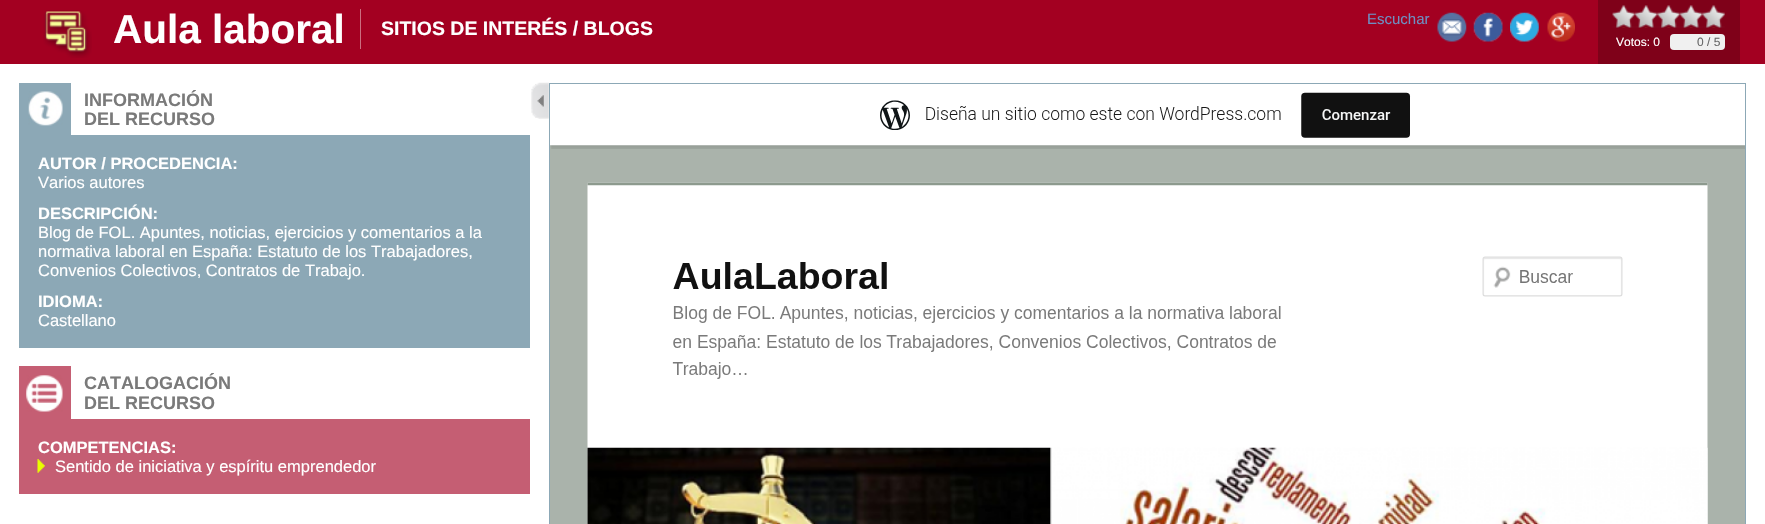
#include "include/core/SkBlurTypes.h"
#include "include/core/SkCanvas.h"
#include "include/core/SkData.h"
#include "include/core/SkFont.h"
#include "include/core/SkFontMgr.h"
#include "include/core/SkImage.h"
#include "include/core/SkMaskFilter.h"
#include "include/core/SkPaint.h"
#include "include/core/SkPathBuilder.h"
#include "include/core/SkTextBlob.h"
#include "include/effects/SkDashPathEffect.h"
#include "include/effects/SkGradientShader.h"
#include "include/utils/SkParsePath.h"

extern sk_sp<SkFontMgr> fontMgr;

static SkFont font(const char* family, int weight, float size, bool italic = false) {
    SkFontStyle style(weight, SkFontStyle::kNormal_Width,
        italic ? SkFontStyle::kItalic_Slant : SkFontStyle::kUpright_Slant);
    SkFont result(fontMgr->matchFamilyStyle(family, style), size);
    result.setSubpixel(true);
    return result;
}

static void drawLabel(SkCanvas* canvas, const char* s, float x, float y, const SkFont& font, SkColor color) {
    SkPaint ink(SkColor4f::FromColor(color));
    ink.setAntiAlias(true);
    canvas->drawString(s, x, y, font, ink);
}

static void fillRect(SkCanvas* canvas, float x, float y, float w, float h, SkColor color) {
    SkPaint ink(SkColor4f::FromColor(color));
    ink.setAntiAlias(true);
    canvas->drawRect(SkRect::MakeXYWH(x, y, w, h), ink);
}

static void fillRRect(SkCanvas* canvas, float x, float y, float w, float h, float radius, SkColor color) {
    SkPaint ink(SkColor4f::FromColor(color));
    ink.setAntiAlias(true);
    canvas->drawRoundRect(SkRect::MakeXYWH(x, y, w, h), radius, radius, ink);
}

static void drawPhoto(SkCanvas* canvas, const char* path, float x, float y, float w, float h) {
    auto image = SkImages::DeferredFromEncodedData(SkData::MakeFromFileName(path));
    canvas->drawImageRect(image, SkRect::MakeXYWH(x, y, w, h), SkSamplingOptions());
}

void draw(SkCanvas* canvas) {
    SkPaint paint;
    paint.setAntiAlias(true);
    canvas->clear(0xFFFFFFFF);
    fillRect(canvas, 0, 0, 1765, 64, 0xFFA30021);
    drawPhoto(canvas, "assets/img1.png", 43, 10, 49, 48);
    SkFont font1 = font("Liberation Sans", 700, 40.5f);
    drawLabel(canvas, "Aula laboral", 113, 43, font1, 0xFFFFFFFF);
    fillRect(canvas, 360, 9, 1, 40, 0xFFCB6E80);
    SkFont font2 = font("Liberation Sans", 700, 19.5f);
    drawLabel(canvas, "SITIOS DE INTERÉS / BLOGS", 381, 35, font2, 0xFFFFFFFF);
    fillRect(canvas, 1598, 0, 142, 64, 0xFF7F0119);
    drawPhoto(canvas, "assets/img2.png", 1612, 5, 113, 23);
    SkFont font3 = font("Liberation Sans", 400, 12);
    drawLabel(canvas, "Votos: 0", 1616, 46, font3, 0xFFFFFFFF);
    fillRRect(canvas, 1670, 34, 55, 16, 4, 0xFFF0F0F0);
    drawLabel(canvas, "0 / 5", 1697, 46, font3, 0xFF666666);
    fillRect(canvas, 19, 83, 52, 52, 0xFF8CA8B6);
    drawPhoto(canvas, "assets/img3.png", 28, 91, 35, 35);
    SkFont font4 = font("Liberation Sans", 700, 18);
    drawLabel(canvas, "INFORMACIÓN", 84, 106, font4, 0xFF7A7A7A);
    drawLabel(canvas, "DEL RECURSO", 84, 125, font4, 0xFF7A7A7A);
    fillRect(canvas, 19, 135, 511, 213, 0xFF8CA8B6);
    SkFont font5 = font("Liberation Sans", 700, 16.5f);
    drawLabel(canvas, "AUTOR / PROCEDENCIA:", 38, 169, font5, 0xFFFFFFFF);
    SkFont font6 = font("Liberation Sans", 400, 16.5f);
    drawLabel(canvas, "Varios autores", 38, 188, font6, 0xFFFFFFFF);
    drawLabel(canvas, "DESCRIPCIÓN:", 38, 219, font5, 0xFFFFFFFF);
    drawLabel(canvas, "Blog de FOL. Apuntes, noticias, ejercicios y comentarios a la", 38, 238, font6, 0xFFFFFFFF);
    drawLabel(canvas, "normativa laboral en España: Estatuto de los Trabajadores,", 38, 257, font6, 0xFFFFFFFF);
    drawLabel(canvas, "Convenios Colectivos, Contratos de Trabajo.", 38, 276, font6, 0xFFFFFFFF);
    drawLabel(canvas, "IDIOMA:", 38, 307, font5, 0xFFFFFFFF);
    drawLabel(canvas, "Castellano", 38, 326, font6, 0xFFFFFFFF);
    fillRect(canvas, 19, 366, 52, 53, 0xFFC55E73);
    drawPhoto(canvas, "assets/img4.png", 26, 375, 37, 37);
    drawLabel(canvas, "CATALOGACIÓN", 84, 389, font4, 0xFF7A7A7A);
    drawLabel(canvas, "DEL RECURSO", 84, 409, font4, 0xFF7A7A7A);
    fillRect(canvas, 19, 419, 511, 75, 0xFFC55E73);
    drawLabel(canvas, "COMPETENCIAS:", 38, 453, font5, 0xFFFFFFFF);
    drawPhoto(canvas, "assets/img5.png", 37, 459, 8, 14);
    drawLabel(canvas, "Sentido de iniciativa y espíritu emprendedor", 55, 472, font6, 0xFFFFFFFF);
    drawPhoto(canvas, "assets/img6.png", 531, 82, 18, 37);
    paint.setStroke(true);
    paint.setStrokeWidth(1);
    paint.setColor(0xFF8CA8B6);
    canvas->drawRect(SkRect::MakeXYWH(549.5f, 83.5f, 1196, 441), paint);
    drawPhoto(canvas, "assets/img7.png", 550, 84, 1195, 440);
    SkFont font7 = font("Liberation Sans", 400, 15);
    drawLabel(canvas, "Escuchar", 1367, 24, font7, 0xFF6E8FC2);
    drawPhoto(canvas, "assets/img8.png", 1437, 12, 30, 30);
    drawPhoto(canvas, "assets/img9.png", 1473, 12, 30, 30);
    drawPhoto(canvas, "assets/img10.png", 1510, 12, 29, 30);
    drawPhoto(canvas, "assets/img11.png", 1547, 12, 28, 30);
}
